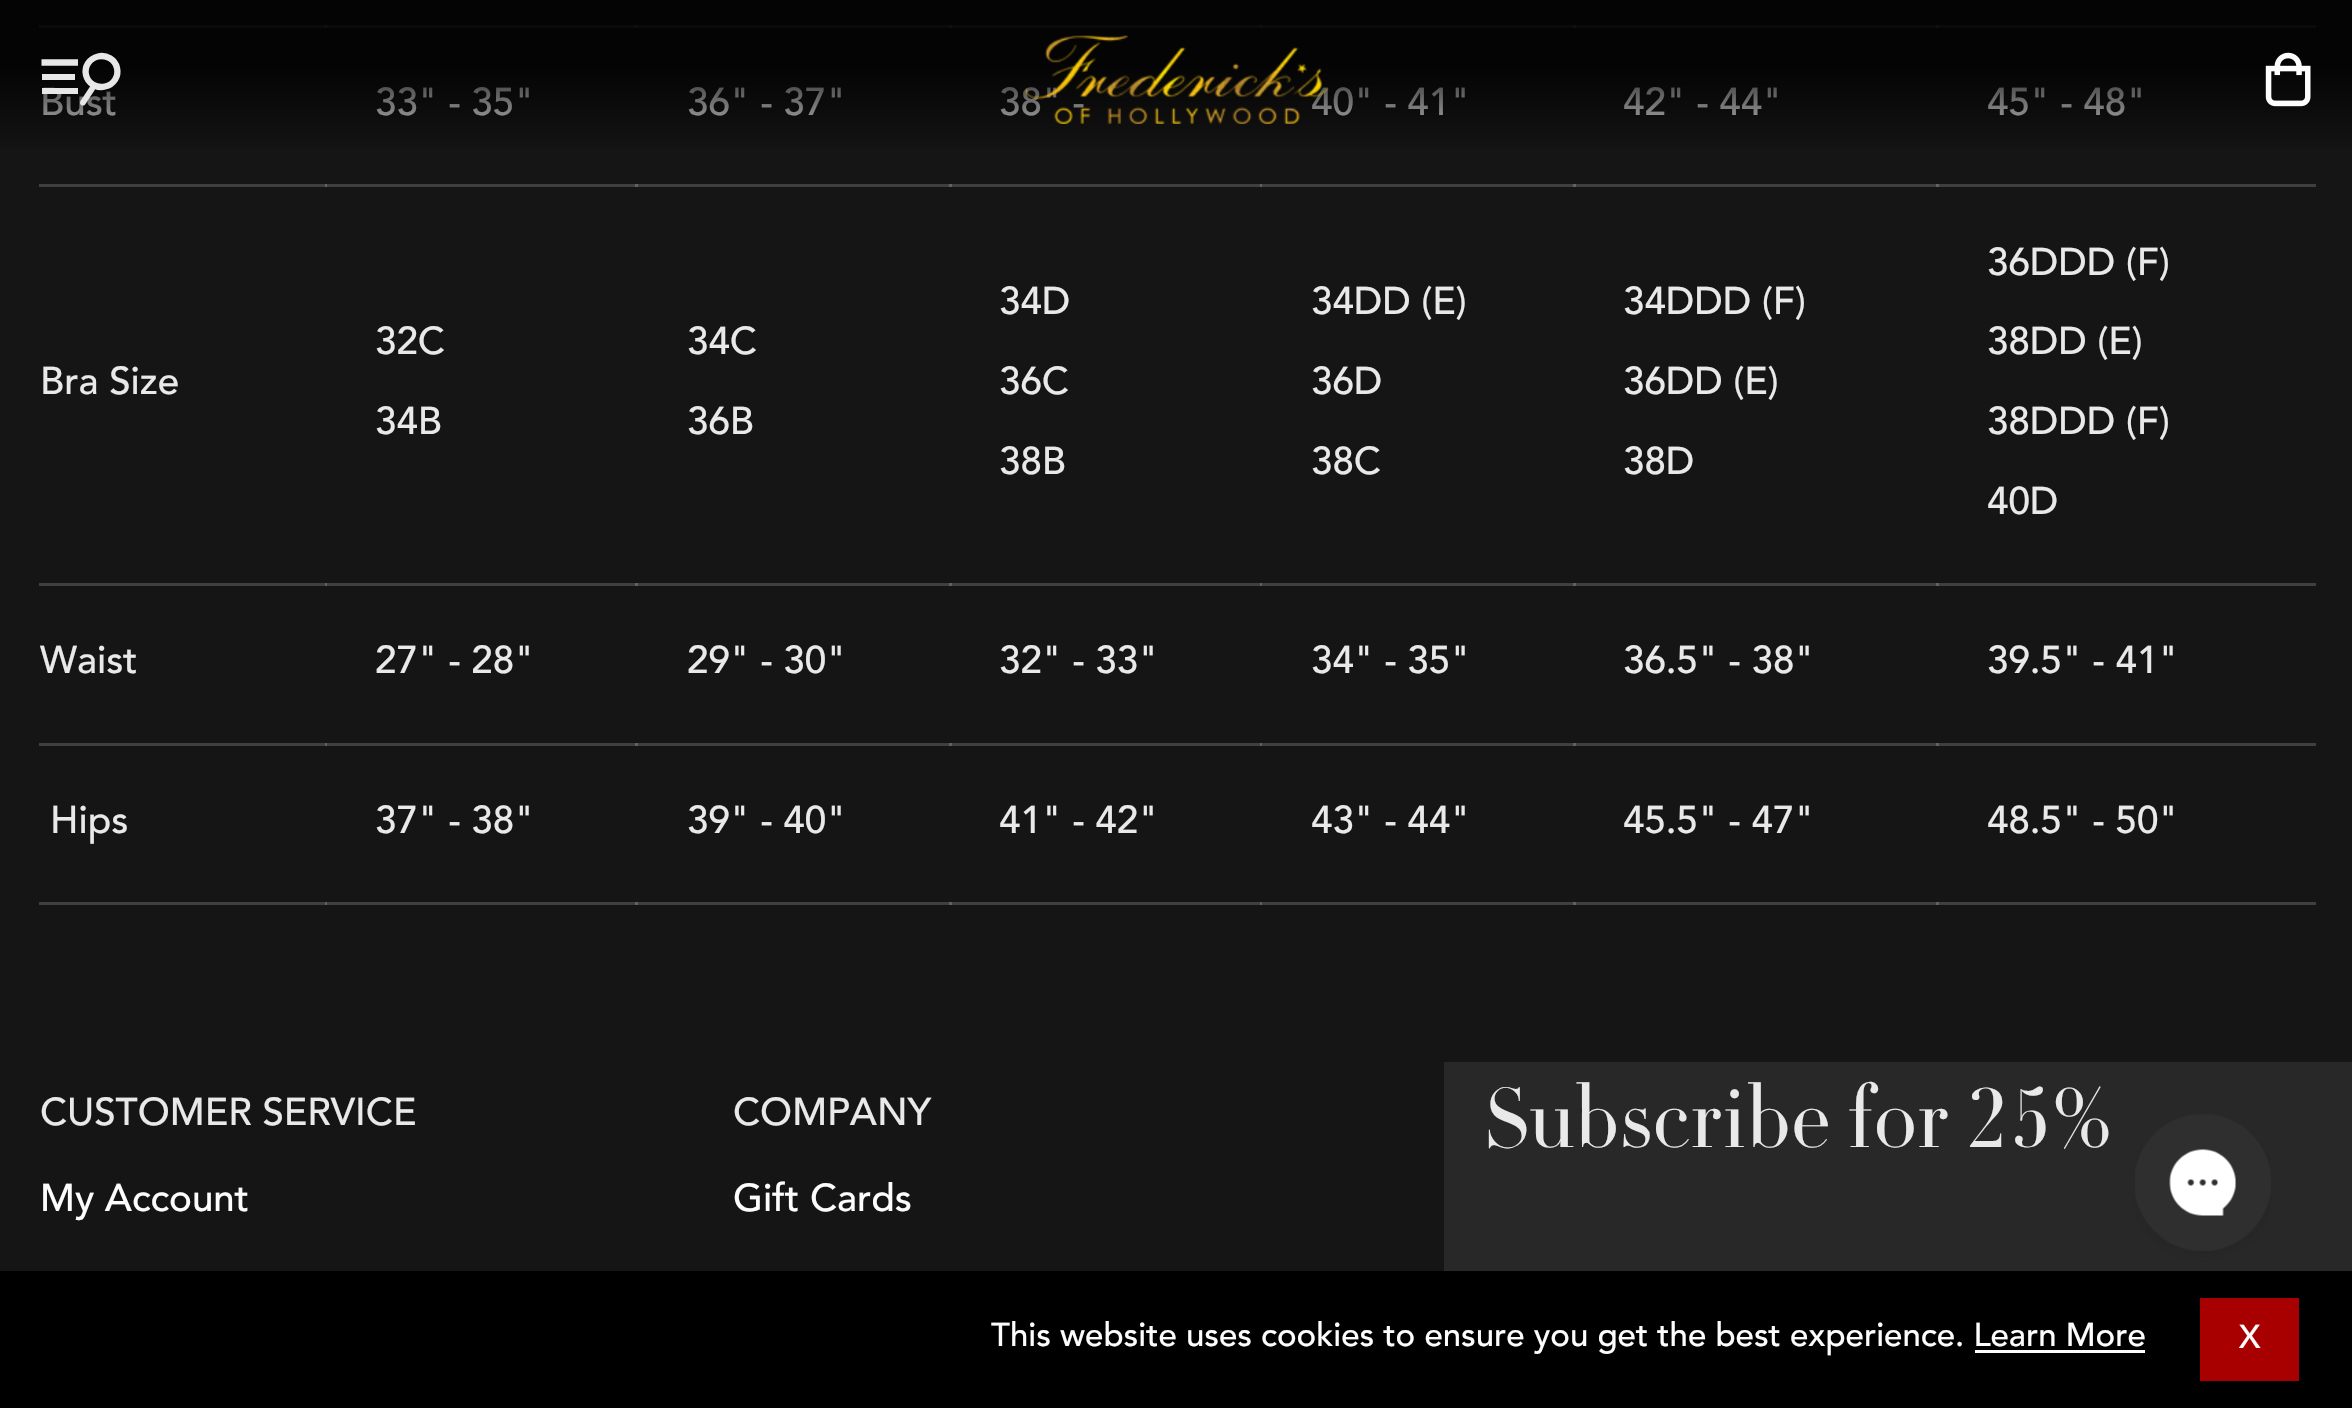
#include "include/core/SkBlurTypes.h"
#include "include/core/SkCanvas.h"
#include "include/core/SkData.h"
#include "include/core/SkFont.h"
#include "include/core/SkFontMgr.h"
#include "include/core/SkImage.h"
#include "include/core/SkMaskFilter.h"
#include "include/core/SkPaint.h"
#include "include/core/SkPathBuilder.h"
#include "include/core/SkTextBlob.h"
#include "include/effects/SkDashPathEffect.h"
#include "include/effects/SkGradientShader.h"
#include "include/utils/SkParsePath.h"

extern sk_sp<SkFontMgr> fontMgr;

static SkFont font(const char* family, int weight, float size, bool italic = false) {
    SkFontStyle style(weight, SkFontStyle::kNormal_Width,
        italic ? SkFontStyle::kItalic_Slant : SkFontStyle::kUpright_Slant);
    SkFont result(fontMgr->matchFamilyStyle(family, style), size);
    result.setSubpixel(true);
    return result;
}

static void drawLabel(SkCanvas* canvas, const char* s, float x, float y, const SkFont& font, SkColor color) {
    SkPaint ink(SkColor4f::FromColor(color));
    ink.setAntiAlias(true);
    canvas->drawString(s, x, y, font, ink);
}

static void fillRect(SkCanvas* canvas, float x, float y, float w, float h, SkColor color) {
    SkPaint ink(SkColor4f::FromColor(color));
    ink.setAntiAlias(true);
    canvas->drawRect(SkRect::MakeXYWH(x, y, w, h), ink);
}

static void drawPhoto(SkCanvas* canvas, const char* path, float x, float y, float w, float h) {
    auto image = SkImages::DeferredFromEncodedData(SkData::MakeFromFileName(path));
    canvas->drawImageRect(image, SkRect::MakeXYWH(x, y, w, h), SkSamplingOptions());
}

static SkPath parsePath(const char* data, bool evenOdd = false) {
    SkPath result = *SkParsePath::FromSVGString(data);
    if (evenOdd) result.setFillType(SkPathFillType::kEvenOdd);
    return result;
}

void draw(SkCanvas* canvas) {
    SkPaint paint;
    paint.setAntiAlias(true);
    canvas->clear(0xFF151515);
    fillRect(canvas, 39, 25, 2277, 3, 0xFF3F3F3F);
    fillRect(canvas, 325, 25, 2, 3, 0xFF616161);
    fillRect(canvas, 635, 25, 3, 3, 0xFF616161);
    fillRect(canvas, 949, 25, 3, 3, 0xFF616161);
    fillRect(canvas, 1260, 25, 2, 3, 0xFF616161);
    fillRect(canvas, 1573, 25, 3, 3, 0xFF616161);
    fillRect(canvas, 1936, 25, 3, 3, 0xFF616161);
    SkFont font1 = font("Avenir", 500, 38.5f);
    drawLabel(canvas, "Bust", 40, 115, font1, 0xFFE9E9E9);
    drawLabel(canvas, "33\" - 35\"", 375, 115, font1, 0xFFE9E9E9);
    drawLabel(canvas, "36\" - 37\"", 687, 115, font1, 0xFFE9E9E9);
    drawLabel(canvas, "38\" -", 999, 115, font1, 0xFFE9E9E9);
    drawLabel(canvas, "40\" - 41\"", 1311, 115, font1, 0xFFE9E9E9);
    drawLabel(canvas, "42\" - 44\"", 1623, 115, font1, 0xFFE9E9E9);
    drawLabel(canvas, "45\" - 48\"", 1987, 115, font1, 0xFFE9E9E9);
    {
        const SkColor colors[] = {0xD6000000, 0x00000000};
        const float stops[] = {0.4f, 1};
        const SkPoint ends[] = {{1177, 0}, {1177, 162}};
        paint.setShader(SkGradientShader::MakeLinear(ends, colors, stops, 2, SkTileMode::kClamp));
        paint.setAlpha(255);
    }
    canvas->drawRect(SkRect::MakeXYWH(0, 0, 2352, 148), paint);
    paint.setStroke(true);
    paint.setStrokeWidth(6.3f);
    paint.setShader(nullptr);
    paint.setColor(0xFFE7E7E7);
    canvas->drawPath(parsePath("M86 75C88 83.5 96.5 88.5 105 86.5C113.5 85 119 76.5 117 68C115 59.5 106.5 54.5 98 56.5C89.5 58.5 84 66.5 86 75Z"), paint);
    paint.setStroke(false);
    paint.setColor(0xFCE9E9E9);
    canvas->drawPath(parsePath("M80.5 101C78.5 104.5 83.5 107.5 85.5 104ZM83 102.5L85.5 104L97 86.5L92 83.5L80.5 101Z"), paint);
    fillRect(canvas, 42, 74, 33, 6, 0xFFE7E7E7);
    fillRect(canvas, 42, 88, 36, 6, 0xFCE9E9E9);
    paint.setStroke(true);
    paint.setColor(0xFFE7E7E7);
    canvas->drawPath(parsePath("M41.5 62.5H78"), paint);
    drawPhoto(canvas, "assets/img1.png", 1025, 35, 304, 89);
    drawPhoto(canvas, "assets/img2.png", 2265, 52, 46, 55);
    fillRect(canvas, 39, 184, 2277, 3, 0xFF3F3F3F);
    fillRect(canvas, 325, 184, 2, 3, 0xFF616161);
    fillRect(canvas, 635, 184, 3, 3, 0xFF616161);
    fillRect(canvas, 949, 184, 3, 3, 0xFF616161);
    fillRect(canvas, 1260, 184, 2, 3, 0xFF616161);
    fillRect(canvas, 1573, 184, 3, 3, 0xFF616161);
    fillRect(canvas, 39, 583, 2277, 3, 0xFF3F3F3F);
    fillRect(canvas, 325, 583, 2, 3, 0xFF616161);
    fillRect(canvas, 635, 583, 3, 3, 0xFF616161);
    fillRect(canvas, 949, 583, 3, 3, 0xFF616161);
    fillRect(canvas, 1260, 583, 2, 3, 0xFF616161);
    fillRect(canvas, 1573, 583, 3, 3, 0xFF616161);
    fillRect(canvas, 39, 743, 2277, 3, 0xFF3F3F3F);
    fillRect(canvas, 325, 743, 2, 3, 0xFF616161);
    fillRect(canvas, 635, 743, 3, 3, 0xFF616161);
    fillRect(canvas, 949, 743, 3, 3, 0xFF616161);
    fillRect(canvas, 1260, 743, 2, 3, 0xFF616161);
    fillRect(canvas, 1573, 743, 3, 3, 0xFF616161);
    fillRect(canvas, 39, 902, 2277, 3, 0xFF3F3F3F);
    fillRect(canvas, 325, 902, 2, 3, 0xFF616161);
    fillRect(canvas, 635, 902, 3, 3, 0xFF616161);
    fillRect(canvas, 949, 902, 3, 3, 0xFF616161);
    fillRect(canvas, 1260, 902, 2, 3, 0xFF616161);
    fillRect(canvas, 1573, 902, 3, 3, 0xFF616161);
    fillRect(canvas, 1936, 184, 3, 3, 0xFF616161);
    drawLabel(canvas, "Bra Size", 40, 394, font1, 0xFFE9E9E9);
    drawLabel(canvas, "32C", 375, 354, font1, 0xFFE9E9E9);
    drawLabel(canvas, "34B", 375, 434, font1, 0xFFE9E9E9);
    drawLabel(canvas, "34C", 687, 354, font1, 0xFFE9E9E9);
    drawLabel(canvas, "36B", 687, 434, font1, 0xFFE9E9E9);
    drawLabel(canvas, "34D", 999, 314, font1, 0xFFE9E9E9);
    drawLabel(canvas, "36C", 999, 394, font1, 0xFFE9E9E9);
    drawLabel(canvas, "38B", 999, 474, font1, 0xFFE9E9E9);
    drawLabel(canvas, "34DD (E)", 1311, 314, font1, 0xFFE9E9E9);
    drawLabel(canvas, "36D", 1311, 394, font1, 0xFFE9E9E9);
    drawLabel(canvas, "38C", 1311, 474, font1, 0xFFE9E9E9);
    drawLabel(canvas, "34DDD (F)", 1623, 314, font1, 0xFFE9E9E9);
    drawLabel(canvas, "36DD (E)", 1623, 394, font1, 0xFFE9E9E9);
    drawLabel(canvas, "38D", 1623, 474, font1, 0xFFE9E9E9);
    fillRect(canvas, 1936, 583, 3, 3, 0xFF616161);
    drawLabel(canvas, "36DDD (F)", 1987, 275, font1, 0xFFE9E9E9);
    drawLabel(canvas, "38DD (E)", 1987, 354, font1, 0xFFE9E9E9);
    drawLabel(canvas, "38DDD (F)", 1987, 434, font1, 0xFFE9E9E9);
    drawLabel(canvas, "40D", 1987, 514, font1, 0xFFE9E9E9);
    drawLabel(canvas, "Waist", 40, 673, font1, 0xFFE9E9E9);
    drawLabel(canvas, "27\" - 28\"", 375, 673, font1, 0xFFE9E9E9);
    drawLabel(canvas, "29\" - 30\"", 687, 673, font1, 0xFFE9E9E9);
    drawLabel(canvas, "32\" - 33\"", 999, 673, font1, 0xFFE9E9E9);
    drawLabel(canvas, "34\" - 35\"", 1311, 673, font1, 0xFFE9E9E9);
    drawLabel(canvas, "36.5\" - 38\"", 1623, 673, font1, 0xFFE9E9E9);
    fillRect(canvas, 1936, 743, 3, 3, 0xFF616161);
    drawLabel(canvas, "39.5\" - 41\"", 1987, 673, font1, 0xFFE9E9E9);
    drawLabel(canvas, "Hips", 50, 833, font1, 0xFFE9E9E9);
    drawLabel(canvas, "37\" - 38\"", 375, 833, font1, 0xFFE9E9E9);
    drawLabel(canvas, "39\" - 40\"", 687, 833, font1, 0xFFE9E9E9);
    drawLabel(canvas, "41\" - 42\"", 999, 833, font1, 0xFFE9E9E9);
    drawLabel(canvas, "43\" - 44\"", 1311, 833, font1, 0xFFE9E9E9);
    drawLabel(canvas, "45.5\" - 47\"", 1623, 833, font1, 0xFFE9E9E9);
    fillRect(canvas, 1936, 902, 3, 3, 0xFF616161);
    drawLabel(canvas, "48.5\" - 50\"", 1987, 833, font1, 0xFFE9E9E9);
    drawLabel(canvas, "CUSTOMER SERVICE", 40, 1125, font1, 0xFFE9E9E9);
    drawLabel(canvas, "My Account", 40, 1211, font1, 0xFFFDFDFD);
    drawLabel(canvas, "COMPANY", 733, 1125, font1, 0xFFE9E9E9);
    drawLabel(canvas, "Gift Cards", 733, 1211, font1, 0xFFFDFDFD);
    fillRect(canvas, 1444, 1062, 908, 209, 0xFF282828);
    SkFont font2 = font("Didot", 400, 88);
    drawLabel(canvas, "Subscribe for 25%", 1484, 1147, font2, 0xFFE9E9E9);
    drawPhoto(canvas, "assets/img3.png", 2135, 1113, 136, 149);
    fillRect(canvas, 0, 1271, 2352, 137, 0xFF000000);
    SkFont font3 = font("Avenir", 500, 33);
    drawLabel(canvas, "This website uses cookies to ensure you get the best experience. Learn More", 991, 1346, font3, 0xFFFDFDFD);
    fillRect(canvas, 1975, 1350, 170, 3, 0xFFFFFFFF);
    fillRect(canvas, 2200, 1298, 99, 83, 0xFFA80000);
    drawLabel(canvas, "X", 2239, 1348, font3, 0xFFFDFDFD);
}
